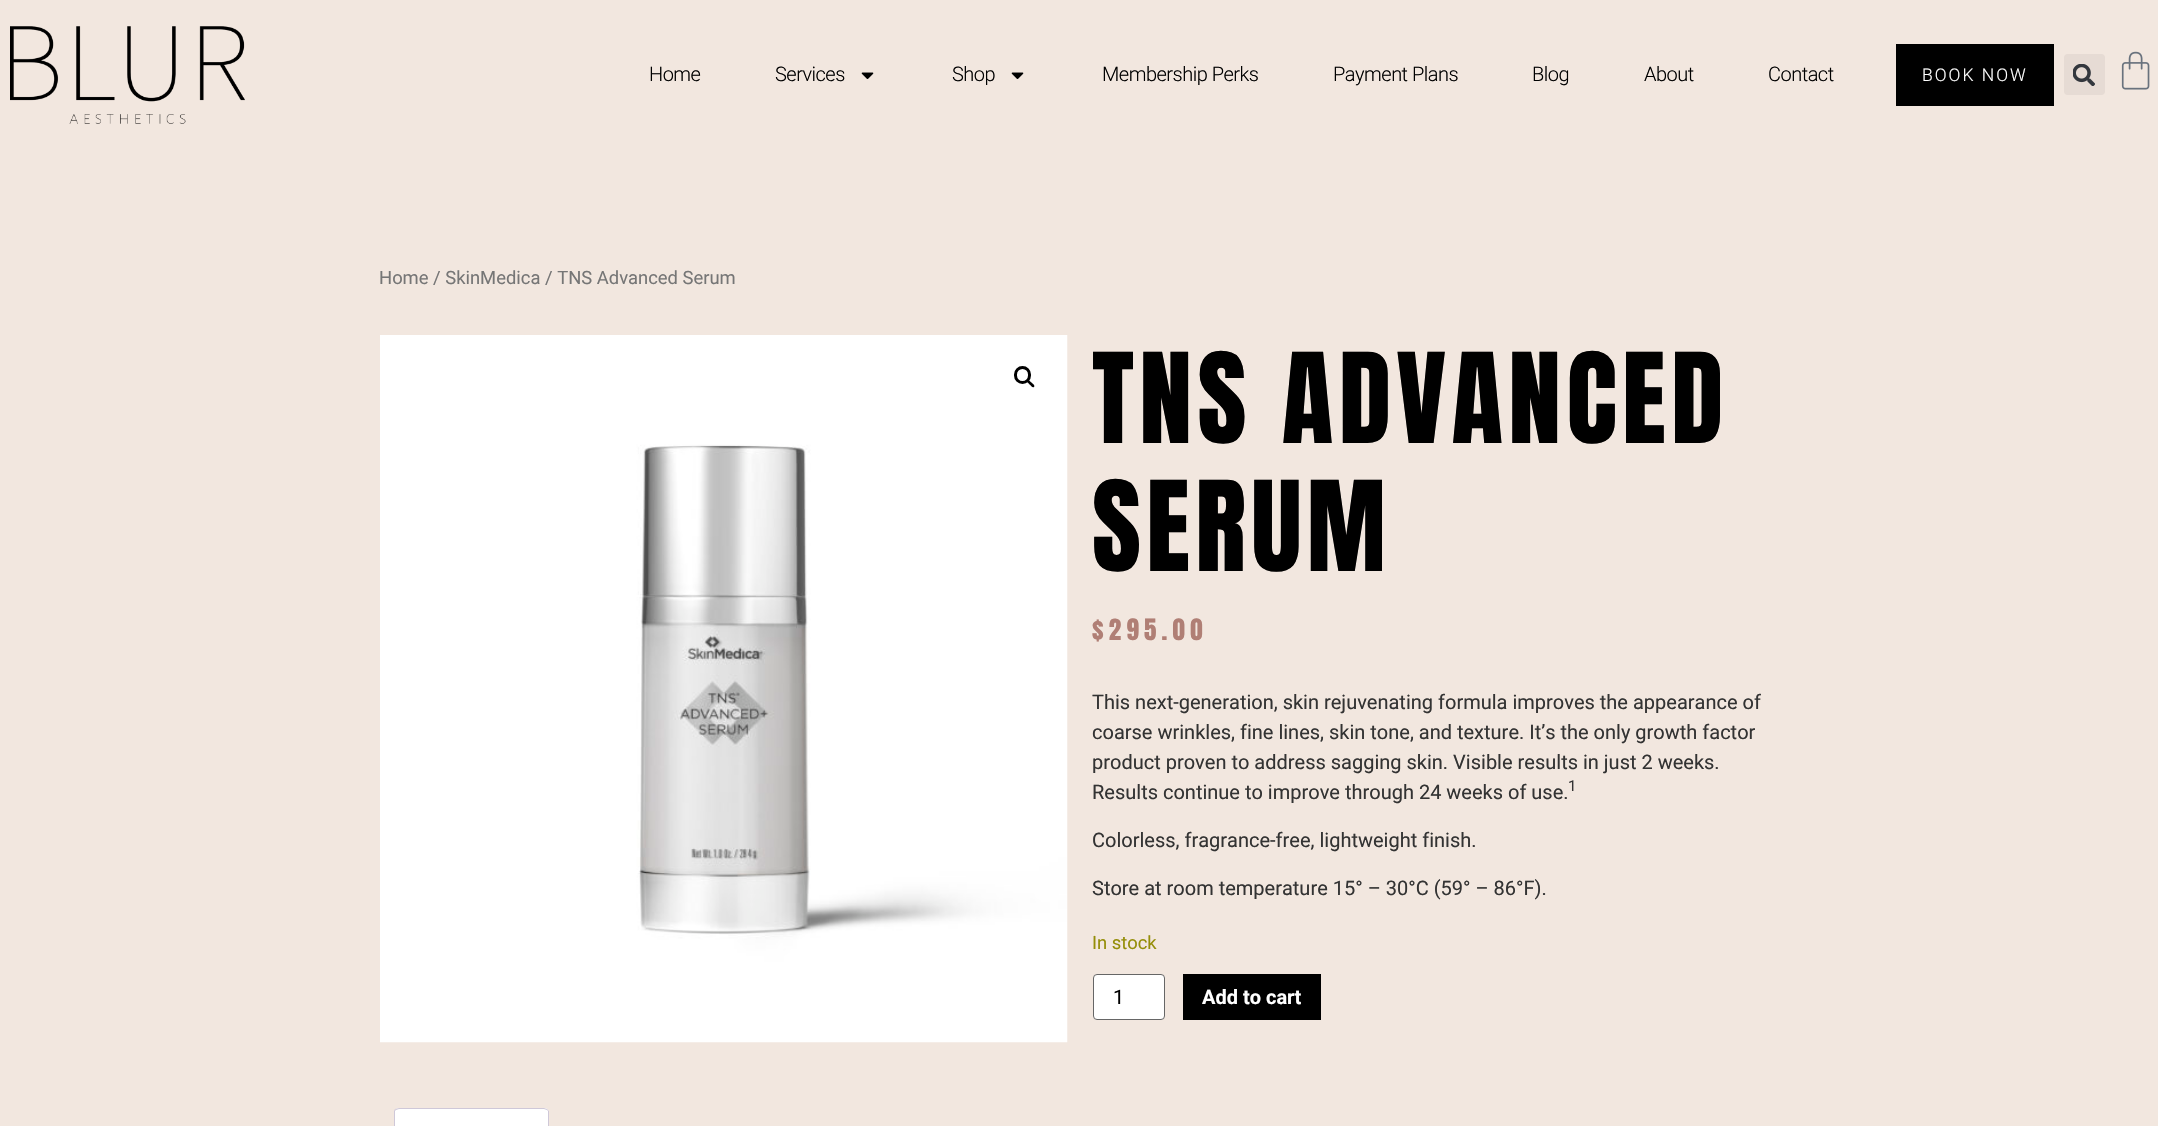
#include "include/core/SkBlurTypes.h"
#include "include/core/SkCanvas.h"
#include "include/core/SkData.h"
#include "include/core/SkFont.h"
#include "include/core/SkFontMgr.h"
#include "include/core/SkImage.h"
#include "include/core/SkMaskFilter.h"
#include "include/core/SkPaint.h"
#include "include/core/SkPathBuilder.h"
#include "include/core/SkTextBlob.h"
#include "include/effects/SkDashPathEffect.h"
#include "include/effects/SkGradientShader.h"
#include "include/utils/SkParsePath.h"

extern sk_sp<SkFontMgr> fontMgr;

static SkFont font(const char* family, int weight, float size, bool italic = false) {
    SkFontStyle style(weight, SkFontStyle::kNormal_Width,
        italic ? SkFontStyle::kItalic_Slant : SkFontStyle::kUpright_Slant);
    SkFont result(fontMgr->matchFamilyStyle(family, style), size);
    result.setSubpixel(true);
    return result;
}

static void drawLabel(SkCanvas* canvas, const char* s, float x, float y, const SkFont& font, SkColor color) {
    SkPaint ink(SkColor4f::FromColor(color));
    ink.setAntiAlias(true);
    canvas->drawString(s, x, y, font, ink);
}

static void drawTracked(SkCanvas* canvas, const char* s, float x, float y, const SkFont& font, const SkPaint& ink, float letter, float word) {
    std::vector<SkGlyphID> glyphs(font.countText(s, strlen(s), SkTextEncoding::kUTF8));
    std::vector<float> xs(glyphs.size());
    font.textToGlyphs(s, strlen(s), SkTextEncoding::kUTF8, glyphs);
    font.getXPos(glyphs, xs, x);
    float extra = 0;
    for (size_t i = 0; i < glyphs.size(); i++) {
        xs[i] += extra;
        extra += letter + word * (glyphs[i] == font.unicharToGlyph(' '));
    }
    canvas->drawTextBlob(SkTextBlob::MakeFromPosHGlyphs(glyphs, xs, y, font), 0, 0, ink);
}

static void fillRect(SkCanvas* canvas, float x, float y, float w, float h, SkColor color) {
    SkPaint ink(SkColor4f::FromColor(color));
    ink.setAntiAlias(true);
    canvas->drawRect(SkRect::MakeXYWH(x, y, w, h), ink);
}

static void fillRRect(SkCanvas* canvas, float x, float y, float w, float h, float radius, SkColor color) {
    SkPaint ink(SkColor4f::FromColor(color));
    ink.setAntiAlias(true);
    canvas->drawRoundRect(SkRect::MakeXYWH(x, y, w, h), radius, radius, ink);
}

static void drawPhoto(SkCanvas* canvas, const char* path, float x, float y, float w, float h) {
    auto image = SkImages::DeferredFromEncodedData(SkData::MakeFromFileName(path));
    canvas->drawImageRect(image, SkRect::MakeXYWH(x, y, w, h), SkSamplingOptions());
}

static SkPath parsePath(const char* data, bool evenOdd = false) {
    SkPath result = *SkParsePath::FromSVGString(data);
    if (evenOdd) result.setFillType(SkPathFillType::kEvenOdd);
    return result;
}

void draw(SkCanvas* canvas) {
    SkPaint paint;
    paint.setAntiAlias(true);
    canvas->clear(0xFFF2E7DF);
    drawPhoto(canvas, "assets/img1.png", 10, 26, 235, 98);
    SkFont font1 = font("Roboto", 300, 20);
    paint.setColor(0xFF000000);
    drawTracked(canvas, "Home", 649, 81, font1, paint, -0.5f, 0);
    drawTracked(canvas, "Services", 775, 81, font1, paint, -0.5f, 0);
    drawPhoto(canvas, "assets/img2.png", 861, 72, 13, 7);
    drawTracked(canvas, "Shop", 952, 81, font1, paint, -0.5f, 0);
    drawPhoto(canvas, "assets/img2.png", 1011, 72, 13, 7);
    drawTracked(canvas, "Membership Perks", 1102, 81, font1, paint, -0.5f, 0);
    drawTracked(canvas, "Payment Plans", 1333, 81, font1, paint, -0.5f, 0);
    drawTracked(canvas, "Blog", 1532, 81, font1, paint, -0.5f, 0);
    drawTracked(canvas, "About", 1644, 81, font1, paint, -0.5f, 0);
    drawTracked(canvas, "Contact", 1768, 81, font1, paint, -0.5f, 0);
    fillRect(canvas, 1896, 44, 158, 62, 0xFF000000);
    SkFont font2 = font("Roboto", 300, 17.5f);
    paint.setColor(0xFFFFFFFF);
    drawTracked(canvas, "BOOK NOW", 1922, 81, font2, paint, 2, 0);
    fillRRect(canvas, 2064, 54, 41, 41, 4, 0xFFE6DBD4);
    drawPhoto(canvas, "assets/img3.png", 2073, 64, 22, 22);
    drawPhoto(canvas, "assets/img4.png", 2121, 51, 29, 39);
    SkFont font3 = font("Roboto", 400, 18.4f);
    drawLabel(canvas, "Home / SkinMedica / TNS Advanced Serum", 379, 284, font3, 0xFF767676);
    drawPhoto(canvas, "assets/img5.png", 380, 335, 688, 708);
    paint.setStroke(true);
    paint.setStrokeWidth(3);
    paint.setColor(0xFF000000);
    canvas->drawRoundRect(SkRect::MakeXYWH(1015.5f, 367.5f, 14, 15), 7, 7, paint);
    paint.setStroke(false);
    canvas->drawPath(parsePath("M1027 380C1028.5 378.5 1030.5 382 1031.5 382.5C1032.5 383.5 1035.5 385.5 1034 387C1032.5 388.5 1030.5 385 1029.5 384.5C1029 383.5 1025.5 381.5 1027 380Z"), paint);
    SkFont font4 = font("Anton", 400, 106.25f);
    drawTracked(canvas, "TNS ADVANCED", 1092, 443, font4, paint, 5.25f, 0);
    drawTracked(canvas, "SERUM", 1092, 571, font4, paint, 5.25f, 0);
    SkFont font5 = font("Anton", 400, 25);
    paint.setColor(0xFFB07F75);
    drawTracked(canvas, "$295.00", 1092, 640, font5, paint, 5.25f, 0);
    SkFont font6 = font("Roboto", 400, 20);
    drawLabel(canvas, "This next-generation, skin rejuvenating formula improves the appearance of", 1092, 709, font6, 0xFF333333);
    drawLabel(canvas, "coarse wrinkles, fine lines, skin tone, and texture. It’s the only growth factor", 1092, 739, font6, 0xFF333333);
    drawLabel(canvas, "product proven to address sagging skin. Visible results in just 2 weeks.", 1092, 769, font6, 0xFF333333);
    drawLabel(canvas, "Results continue to improve through 24 weeks of use.", 1092, 799, font6, 0xFF333333);
    SkFont font7 = font("Roboto", 400, 15);
    drawLabel(canvas, "1", 1568, 791, font7, 0xFF333333);
    drawLabel(canvas, "Colorless, fragrance-free, lightweight finish.", 1092, 847, font6, 0xFF333333);
    drawLabel(canvas, "Store at room temperature 15° – 30°C (59° – 86°F).", 1092, 895, font6, 0xFF333333);
    drawLabel(canvas, "In stock", 1092, 949, font3, 0xFF958E09);
    paint.setColor(0xFFFFFFFF);
    canvas->drawRoundRect(SkRect::MakeXYWH(1093.5f, 974.5f, 71, 45), 3.5f, 3.5f, paint);
    paint.setStroke(true);
    paint.setStrokeWidth(1);
    paint.setColor(0xFF666666);
    canvas->drawRoundRect(SkRect::MakeXYWH(1093.5f, 974.5f, 71, 45), 3.5f, 3.5f, paint);
    drawLabel(canvas, "1", 1113, 1004, font6, 0xFF000000);
    fillRect(canvas, 1183, 974, 138, 46, 0xFF000000);
    SkFont font8 = font("Roboto", 700, 20);
    drawLabel(canvas, "Add to cart", 1202, 1004, font8, 0xFFFFFFFF);
    paint.setStroke(false);
    paint.setColor(0xFFFFFFFF);
    canvas->drawPath(parsePath("M399 1108H544C547 1108 549 1110 549 1113V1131H394V1113C394 1110 396 1108 399 1108Z"), paint);
    paint.setColor(0xFFCFC8D8);
    canvas->drawPath(parsePath("M399 1108L395 1109L396 1110L399 1109H544L547 1110V1109L544 1108Z"), paint);
    canvas->drawPath(parsePath("M547 1109L549 1111V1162L547 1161H548V1111L547 1110Z"), paint);
    canvas->drawPath(parsePath("M395 1109L394 1111V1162L395 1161V1111L396 1110Z"), paint);
}
